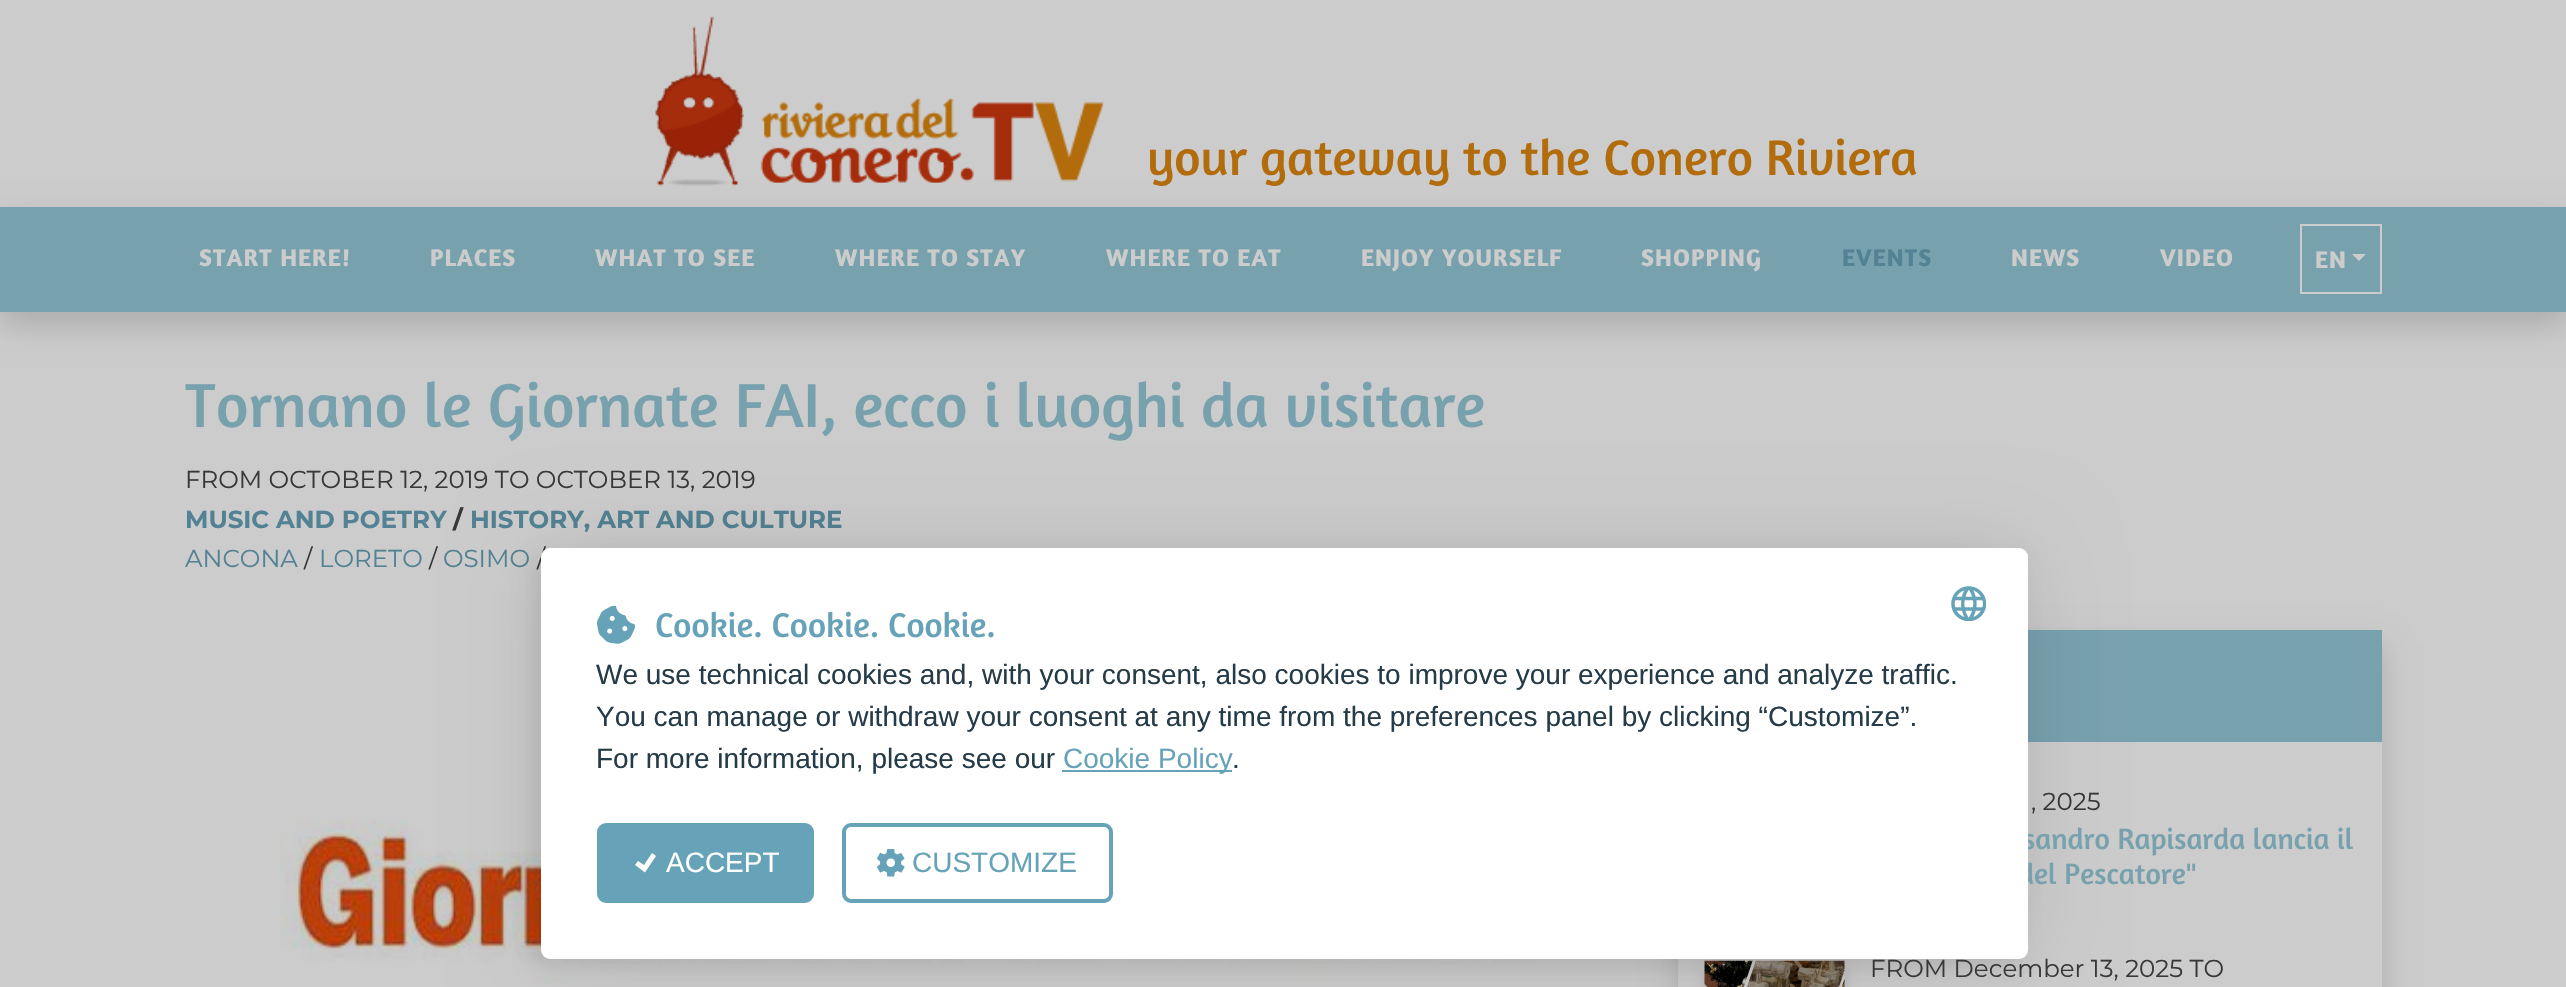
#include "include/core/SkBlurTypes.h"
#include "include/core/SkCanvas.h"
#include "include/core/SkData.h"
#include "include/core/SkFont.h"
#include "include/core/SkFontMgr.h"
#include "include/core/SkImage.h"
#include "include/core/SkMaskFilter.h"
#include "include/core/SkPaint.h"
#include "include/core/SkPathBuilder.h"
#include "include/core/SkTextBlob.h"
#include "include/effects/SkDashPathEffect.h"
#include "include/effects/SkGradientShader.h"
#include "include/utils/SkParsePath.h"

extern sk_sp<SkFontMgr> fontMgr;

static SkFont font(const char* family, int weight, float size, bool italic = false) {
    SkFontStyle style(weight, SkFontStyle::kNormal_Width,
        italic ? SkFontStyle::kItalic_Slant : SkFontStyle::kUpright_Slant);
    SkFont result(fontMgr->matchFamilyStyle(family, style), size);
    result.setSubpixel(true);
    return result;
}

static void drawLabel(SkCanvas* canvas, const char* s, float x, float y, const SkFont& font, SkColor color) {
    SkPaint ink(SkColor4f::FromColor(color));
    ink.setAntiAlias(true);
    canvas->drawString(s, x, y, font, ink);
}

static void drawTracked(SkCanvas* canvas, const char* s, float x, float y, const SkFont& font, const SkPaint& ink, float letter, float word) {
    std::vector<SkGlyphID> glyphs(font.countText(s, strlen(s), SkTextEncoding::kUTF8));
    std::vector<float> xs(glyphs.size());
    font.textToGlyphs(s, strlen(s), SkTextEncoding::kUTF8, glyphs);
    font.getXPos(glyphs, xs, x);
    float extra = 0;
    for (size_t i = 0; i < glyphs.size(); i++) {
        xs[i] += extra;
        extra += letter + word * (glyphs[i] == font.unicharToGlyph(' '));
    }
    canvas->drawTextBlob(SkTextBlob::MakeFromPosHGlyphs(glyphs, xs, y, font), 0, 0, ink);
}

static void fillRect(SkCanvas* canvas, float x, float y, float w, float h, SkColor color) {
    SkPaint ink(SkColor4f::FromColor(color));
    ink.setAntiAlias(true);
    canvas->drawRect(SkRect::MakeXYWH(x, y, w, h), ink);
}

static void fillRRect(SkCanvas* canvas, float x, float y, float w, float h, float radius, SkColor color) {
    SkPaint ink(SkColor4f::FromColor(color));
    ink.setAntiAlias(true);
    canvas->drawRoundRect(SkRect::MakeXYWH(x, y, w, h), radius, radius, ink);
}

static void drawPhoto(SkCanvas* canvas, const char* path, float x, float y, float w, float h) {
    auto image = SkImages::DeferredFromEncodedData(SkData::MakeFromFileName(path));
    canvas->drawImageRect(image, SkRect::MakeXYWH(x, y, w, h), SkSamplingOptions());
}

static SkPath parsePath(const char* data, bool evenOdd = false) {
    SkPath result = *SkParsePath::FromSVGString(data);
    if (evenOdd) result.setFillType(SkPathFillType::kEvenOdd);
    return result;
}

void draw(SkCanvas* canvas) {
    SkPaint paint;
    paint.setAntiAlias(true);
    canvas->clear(0xFFCCCCCC);
    drawPhoto(canvas, "assets/img1.png", 655, 16, 450, 171);
    SkFont font1 = font("Amaranth", 400, 50.75f);
    drawLabel(canvas, "your gateway to the Conero Riviera", 1147, 175, font1, 0xFFB26C0C);
    paint.setColor(0x26000000);
    paint.setMaskFilter(SkMaskFilter::MakeBlur(kNormal_SkBlurStyle, 14));
    canvas->drawRect(SkRect::MakeXYWH(0, 221, 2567, 105), paint);
    paint.setMaskFilter(nullptr);
    fillRect(canvas, 0, 207, 2566, 105, 0xFF78A1AE);
    SkFont font2 = font("Amaranth", 700, 24.5f);
    paint.setColor(0xFFCCCCCC);
    drawTracked(canvas, "START HERE!", 199, 266, font2, paint, 1.1f, 0);
    drawTracked(canvas, "PLACES", 430, 266, font2, paint, 1.1f, 0);
    drawTracked(canvas, "WHAT TO SEE", 595, 266, font2, paint, 1.1f, 0);
    drawTracked(canvas, "WHERE TO STAY", 835, 266, font2, paint, 1.1f, 0);
    drawTracked(canvas, "WHERE TO EAT", 1106, 266, font2, paint, 1.1f, 0);
    drawTracked(canvas, "ENJOY YOURSELF", 1361, 266, font2, paint, 1.1f, 0);
    drawTracked(canvas, "SHOPPING", 1641, 266, font2, paint, 1.1f, 0);
    paint.setColor(0xFF528293);
    drawTracked(canvas, "EVENTS", 1842, 266, font2, paint, 1.1f, 0);
    paint.setColor(0xFFCCCCCC);
    drawTracked(canvas, "NEWS", 2011, 266, font2, paint, 1.1f, 0);
    drawTracked(canvas, "VIDEO", 2160, 266, font2, paint, 1.1f, 0);
    paint.setStroke(true);
    paint.setStrokeWidth(2);
    canvas->drawRect(SkRect::MakeXYWH(2301, 225, 80, 68), paint);
    paint.setStroke(false);
    drawTracked(canvas, "EN", 2315, 268, font2, paint, 1.1f, 0);
    canvas->drawPath(parsePath("M2352 254H2366L2359 261Z"), paint);
    SkFont font3 = font("Amaranth", 400, 63);
    drawLabel(canvas, "Tornano le Giornate FAI, ecco i luoghi da visitare", 185, 427, font3, 0xFF78A1AE);
    SkFont font4 = font("Montserrat", 100, 24.5f);
    drawLabel(canvas, "FROM OCTOBER 12, 2019 TO OCTOBER 13, 2019", 185, 488, font4, 0xFF383838);
    SkFont font5 = font("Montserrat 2", 100, 24.5f);
    drawLabel(canvas, "MUSIC AND POETRY", 185, 528, font5, 0xFF528293);
    drawLabel(canvas, "/", 453, 528, font5, 0xFF383838);
    drawLabel(canvas, "HISTORY, ART AND CULTURE", 470, 528, font5, 0xFF528293);
    drawLabel(canvas, "ANCONA", 185, 567, font4, 0xFF528293);
    drawLabel(canvas, "/", 304, 567, font4, 0xFF383838);
    drawLabel(canvas, "LORETO", 319, 567, font4, 0xFF528293);
    drawLabel(canvas, "/", 429, 567, font4, 0xFF383838);
    drawLabel(canvas, "OSIMO", 443, 567, font4, 0xFF528293);
    drawLabel(canvas, "/", 537, 567, font4, 0xFF383838);
    drawPhoto(canvas, "assets/img5.png", 280, 724, 1272, 260);
    paint.setColor(0x26000000);
    paint.setMaskFilter(SkMaskFilter::MakeBlur(kNormal_SkBlurStyle, 14));
    canvas->drawRect(SkRect::MakeXYWH(1678, 644, 704, 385), paint);
    paint.setMaskFilter(nullptr);
    fillRect(canvas, 1678, 742, 704, 245, 0xFFCCCCCC);
    fillRect(canvas, 2028, 630, 354, 112, 0xFF78A1AE);
    paint.setMaskFilter(SkMaskFilter::MakeBlur(kNormal_SkBlurStyle, 7));
    canvas->drawRect(SkRect::MakeXYWH(1705, 968, 140, 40), paint);
    paint.setMaskFilter(nullptr);
    drawPhoto(canvas, "assets/img6.png", 1704, 960, 141, 27);
    paint.setColor(0x1A000000);
    paint.setMaskFilter(SkMaskFilter::MakeBlur(kNormal_SkBlurStyle, 44));
    canvas->drawRoundRect(SkRect::MakeXYWH(541, 548, 1487, 411), 9, 9, paint);
    paint.setMaskFilter(nullptr);
    paint.setColor(0x12000000);
    paint.setMaskFilter(SkMaskFilter::MakeBlur(kNormal_SkBlurStyle, 9));
    canvas->drawRoundRect(SkRect::MakeXYWH(532, 557, 1488, 411), 9, 9, paint);
    paint.setMaskFilter(nullptr);
    SkFont font6 = font("Amaranth", 400, 29.75f);
    drawLabel(canvas, "sandro Rapisarda lancia il", 2023, 849, font6, 0xFF78A1AE);
    drawLabel(canvas, "del Pescatore\"", 2018, 884, font6, 0xFF78A1AE);
    drawLabel(canvas, "FROM December 13, 2025 TO", 1870, 977, font4, 0xFF383838);
    fillRRect(canvas, 541, 548, 1487, 411, 9, 0xFFFFFFFF);
    drawPhoto(canvas, "assets/img2.png", 1951, 586, 35, 35);
    drawPhoto(canvas, "assets/img3.png", 597, 606, 38, 38);
    SkFont font7 = font("Amaranth", 400, 35);
    drawLabel(canvas, "Cookie. Cookie. Cookie.", 655, 637, font7, 0xFF67A3B8);
    SkFont font8 = font("Liberation Sans", 400, 28);
    drawLabel(canvas, "We use technical cookies and, with your consent, also cookies to improve your experience and analyze traffic.", 596, 684, font8, 0xFF253B48);
    drawLabel(canvas, "You can manage or withdraw your consent at any time from the preferences panel by clicking “Customize”.", 596, 726, font8, 0xFF253B48);
    drawLabel(canvas, "For more information, please see our", 596, 768, font8, 0xFF253B48);
    fillRect(canvas, 1062, 770, 170, 2, 0xFF67A3B8);
    drawLabel(canvas, "Cookie Policy", 1063, 768, font8, 0xFF67A3B8);
    drawLabel(canvas, ".", 1232, 768, font8, 0xFF253B48);
    paint.setColor(0xFF67A3B8);
    canvas->drawRoundRect(SkRect::MakeXYWH(599, 825, 213, 76), 7, 7, paint);
    paint.setStroke(true);
    paint.setStrokeWidth(4);
    canvas->drawRoundRect(SkRect::MakeXYWH(599, 825, 213, 76), 7, 7, paint);
    paint.setStroke(false);
    paint.setColor(0xFFFFFFFF);
    canvas->drawPath(parsePath("M652 853L644 865L638 861L635 865L645 872.5L656 856Z"), paint);
    drawLabel(canvas, "ACCEPT", 666, 872, font8, 0xFFFFFFFF);
    paint.setStroke(true);
    paint.setColor(0xFF67A3B8);
    canvas->drawRoundRect(SkRect::MakeXYWH(844, 825, 267, 76), 7, 7, paint);
    drawPhoto(canvas, "assets/img4.png", 877, 849, 28, 28);
    drawLabel(canvas, "CUSTOMIZE", 912, 872, font8, 0xFF67A3B8);
    drawLabel(canvas, ", 2025", 2031, 810, font4, 0xFF383838);
}
